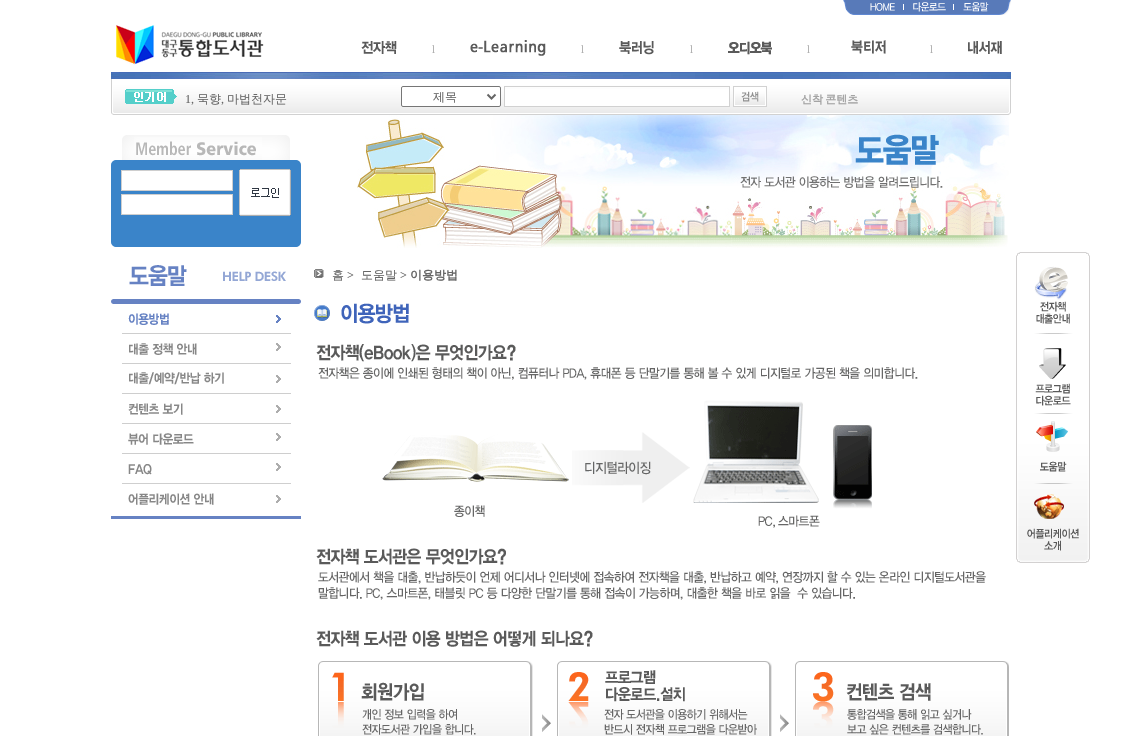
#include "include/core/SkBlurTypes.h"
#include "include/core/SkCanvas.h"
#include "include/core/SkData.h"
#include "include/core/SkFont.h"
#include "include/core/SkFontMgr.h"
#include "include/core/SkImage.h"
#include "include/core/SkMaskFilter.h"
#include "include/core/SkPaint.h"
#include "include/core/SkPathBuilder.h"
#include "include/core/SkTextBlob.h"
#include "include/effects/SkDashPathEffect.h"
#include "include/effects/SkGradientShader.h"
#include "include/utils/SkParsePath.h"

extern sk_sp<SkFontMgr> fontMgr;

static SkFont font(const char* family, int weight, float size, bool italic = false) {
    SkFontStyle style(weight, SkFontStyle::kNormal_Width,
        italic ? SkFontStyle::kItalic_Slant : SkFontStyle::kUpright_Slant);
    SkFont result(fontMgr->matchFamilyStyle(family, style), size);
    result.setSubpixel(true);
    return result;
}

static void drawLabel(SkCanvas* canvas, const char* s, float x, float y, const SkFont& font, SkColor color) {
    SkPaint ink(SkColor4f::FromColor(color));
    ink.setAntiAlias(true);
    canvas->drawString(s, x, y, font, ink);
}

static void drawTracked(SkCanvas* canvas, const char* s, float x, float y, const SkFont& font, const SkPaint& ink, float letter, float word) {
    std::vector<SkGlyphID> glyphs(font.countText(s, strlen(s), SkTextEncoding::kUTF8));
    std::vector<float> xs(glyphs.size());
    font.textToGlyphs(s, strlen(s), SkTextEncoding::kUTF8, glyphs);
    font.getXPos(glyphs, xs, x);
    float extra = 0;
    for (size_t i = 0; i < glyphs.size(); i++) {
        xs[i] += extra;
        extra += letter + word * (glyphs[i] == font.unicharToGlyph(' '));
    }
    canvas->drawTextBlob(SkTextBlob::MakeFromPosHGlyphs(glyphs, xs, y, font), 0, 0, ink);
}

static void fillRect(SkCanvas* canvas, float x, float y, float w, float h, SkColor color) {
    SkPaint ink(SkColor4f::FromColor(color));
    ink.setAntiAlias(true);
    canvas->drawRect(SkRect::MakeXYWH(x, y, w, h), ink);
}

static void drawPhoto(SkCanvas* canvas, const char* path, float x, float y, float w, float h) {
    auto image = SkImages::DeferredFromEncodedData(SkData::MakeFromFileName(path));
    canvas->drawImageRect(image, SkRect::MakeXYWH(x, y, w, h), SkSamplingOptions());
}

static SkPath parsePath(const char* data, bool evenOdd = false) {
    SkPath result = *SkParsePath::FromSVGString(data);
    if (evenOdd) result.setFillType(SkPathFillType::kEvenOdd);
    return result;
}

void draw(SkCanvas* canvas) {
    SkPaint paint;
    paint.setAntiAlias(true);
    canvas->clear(0xFFFFFFFF);
    drawPhoto(canvas, "assets/img1.png", 843, 0, 61, 15);
    drawPhoto(canvas, "assets/img2.png", 904, 0, 50, 15);
    drawPhoto(canvas, "assets/img3.png", 954, 0, 57, 15);
    drawPhoto(canvas, "assets/img4.png", 116, 25, 148, 40);
    drawPhoto(canvas, "assets/img5.png", 111, 72, 900, 7);
    drawPhoto(canvas, "assets/img6.png", 361, 41, 36, 13);
    SkFont font1 = font("Liberation Serif", 400, 11);
    drawLabel(canvas, "l", 432, 53, font1, 0xFFADADAD);
    drawPhoto(canvas, "assets/img7.png", 470, 40, 76, 16);
    drawLabel(canvas, "l", 581, 53, font1, 0xFFADADAD);
    drawPhoto(canvas, "assets/img8.png", 619, 41, 35, 14);
    drawLabel(canvas, "l", 690, 53, font1, 0xFFADADAD);
    drawPhoto(canvas, "assets/img9.png", 728, 41, 44, 14);
    drawLabel(canvas, "l", 807, 53, font1, 0xFFADADAD);
    drawPhoto(canvas, "assets/img10.png", 851, 40, 35, 14);
    drawLabel(canvas, "l", 930, 53, font1, 0xFFADADAD);
    drawPhoto(canvas, "assets/img11.png", 968, 41, 34, 13);
    drawPhoto(canvas, "assets/img12.png", 111, 79, 900, 36);
    drawPhoto(canvas, "assets/img13.png", 125, 89, 52, 15);
    SkFont font2 = font("Liberation Serif", 400, 12);
    drawLabel(canvas, "1,", 185, 103, font2, 0xFF666666);
    SkFont font3 = font("WenQuanYi Zen Hei", 500, 12);
    drawLabel(canvas, "묵향", 197, 103, font3, 0xFF666666);
    drawLabel(canvas, ",", 221, 103, font2, 0xFF666666);
    drawLabel(canvas, "마법천자문", 227, 103, font3, 0xFF666666);
    paint.setColor(0xFFFFFFFF);
    canvas->drawRoundRect(SkRect::MakeXYWH(401.5f, 86.5f, 99, 20), 1.5f, 1.5f, paint);
    paint.setStroke(true);
    paint.setStrokeWidth(1);
    paint.setColor(0xFF767676);
    canvas->drawRoundRect(SkRect::MakeXYWH(401.5f, 86.5f, 99, 20), 1.5f, 1.5f, paint);
    paint.setStrokeWidth(2);
    paint.setColor(0xFF666666);
    canvas->drawPath(parsePath("M487.5 94.5L491.5 98.5L495.5 94.5"), paint);
    drawLabel(canvas, "제목", 433, 101, font3, 0xFF666666);
    fillRect(canvas, 505, 89, 224, 17, 0xFFFFFFFF);
    paint.setStrokeWidth(1);
    paint.setColor(0xFFD1D1D1);
    canvas->drawRect(SkRect::MakeXYWH(504.5f, 86.5f, 225, 20), paint);
    drawPhoto(canvas, "assets/img14.png", 733, 86, 34, 21);
    SkFont font4 = font("WenQuanYi Zen Hei", 700, 11);
    paint.setStroke(false);
    paint.setColor(0xFFA4A4A4);
    drawTracked(canvas, "신착 콘텐츠", 801, 103, font4, paint, 0, -1);
    drawPhoto(canvas, "assets/img15.png", 111, 160, 190, 87);
    drawPhoto(canvas, "assets/img16.png", 122, 135, 168, 25);
    paint.setColor(0xFFFFFFFF);
    canvas->drawRect(SkRect::MakeXYWH(121.5f, 170.5f, 111, 20), paint);
    paint.setStroke(true);
    paint.setColor(0xFFCECECE);
    canvas->drawRect(SkRect::MakeXYWH(121.5f, 170.5f, 111, 20), paint);
    paint.setStroke(false);
    paint.setColor(0xFFFFFFFF);
    canvas->drawRect(SkRect::MakeXYWH(121.5f, 194.5f, 111, 20), paint);
    paint.setStroke(true);
    paint.setColor(0xFFCECECE);
    canvas->drawRect(SkRect::MakeXYWH(121.5f, 194.5f, 111, 20), paint);
    drawPhoto(canvas, "assets/img17.png", 239, 169, 52, 47);
    drawPhoto(canvas, "assets/img18.png", 111, 265, 190, 39);
    drawPhoto(canvas, "assets/img19.png", 122, 313, 169, 21);
    drawPhoto(canvas, "assets/img20.png", 122, 343, 169, 21);
    drawPhoto(canvas, "assets/img21.png", 122, 372, 169, 22);
    drawPhoto(canvas, "assets/img22.png", 122, 403, 169, 21);
    drawPhoto(canvas, "assets/img23.png", 122, 433, 169, 21);
    drawPhoto(canvas, "assets/img24.png", 122, 463, 169, 21);
    drawPhoto(canvas, "assets/img25.png", 128, 493, 153, 12);
    fillRect(canvas, 111, 516, 190, 3, 0xFF6682C3);
    drawPhoto(canvas, "assets/img26.png", 309, 115, 700, 133);
    drawPhoto(canvas, "assets/img27.png", 314, 269, 10, 9);
    drawLabel(canvas, "홈", 332, 279, font3, 0xFF666666);
    drawLabel(canvas, ">", 347, 279, font2, 0xFF666666);
    drawLabel(canvas, "도움말", 361, 279, font3, 0xFF666666);
    drawLabel(canvas, ">", 400, 279, font2, 0xFF666666);
    SkFont font5 = font("WenQuanYi Zen Hei", 700, 12);
    drawLabel(canvas, "이용방법", 410, 279, font5, 0xFF666666);
    drawPhoto(canvas, "assets/img28.png", 314, 303, 95, 21);
    drawPhoto(canvas, "assets/img29.png", 316, 344, 602, 184);
    drawPhoto(canvas, "assets/img30.png", 316, 548, 670, 52);
    drawPhoto(canvas, "assets/img31.png", 316, 630, 693, 106);
    drawPhoto(canvas, "assets/img32.png", 1016, 252, 74, 82);
    drawPhoto(canvas, "assets/img33.png", 1016, 334, 74, 80);
    drawPhoto(canvas, "assets/img34.png", 1016, 414, 74, 70);
    drawPhoto(canvas, "assets/img35.png", 1016, 484, 74, 79);
}
